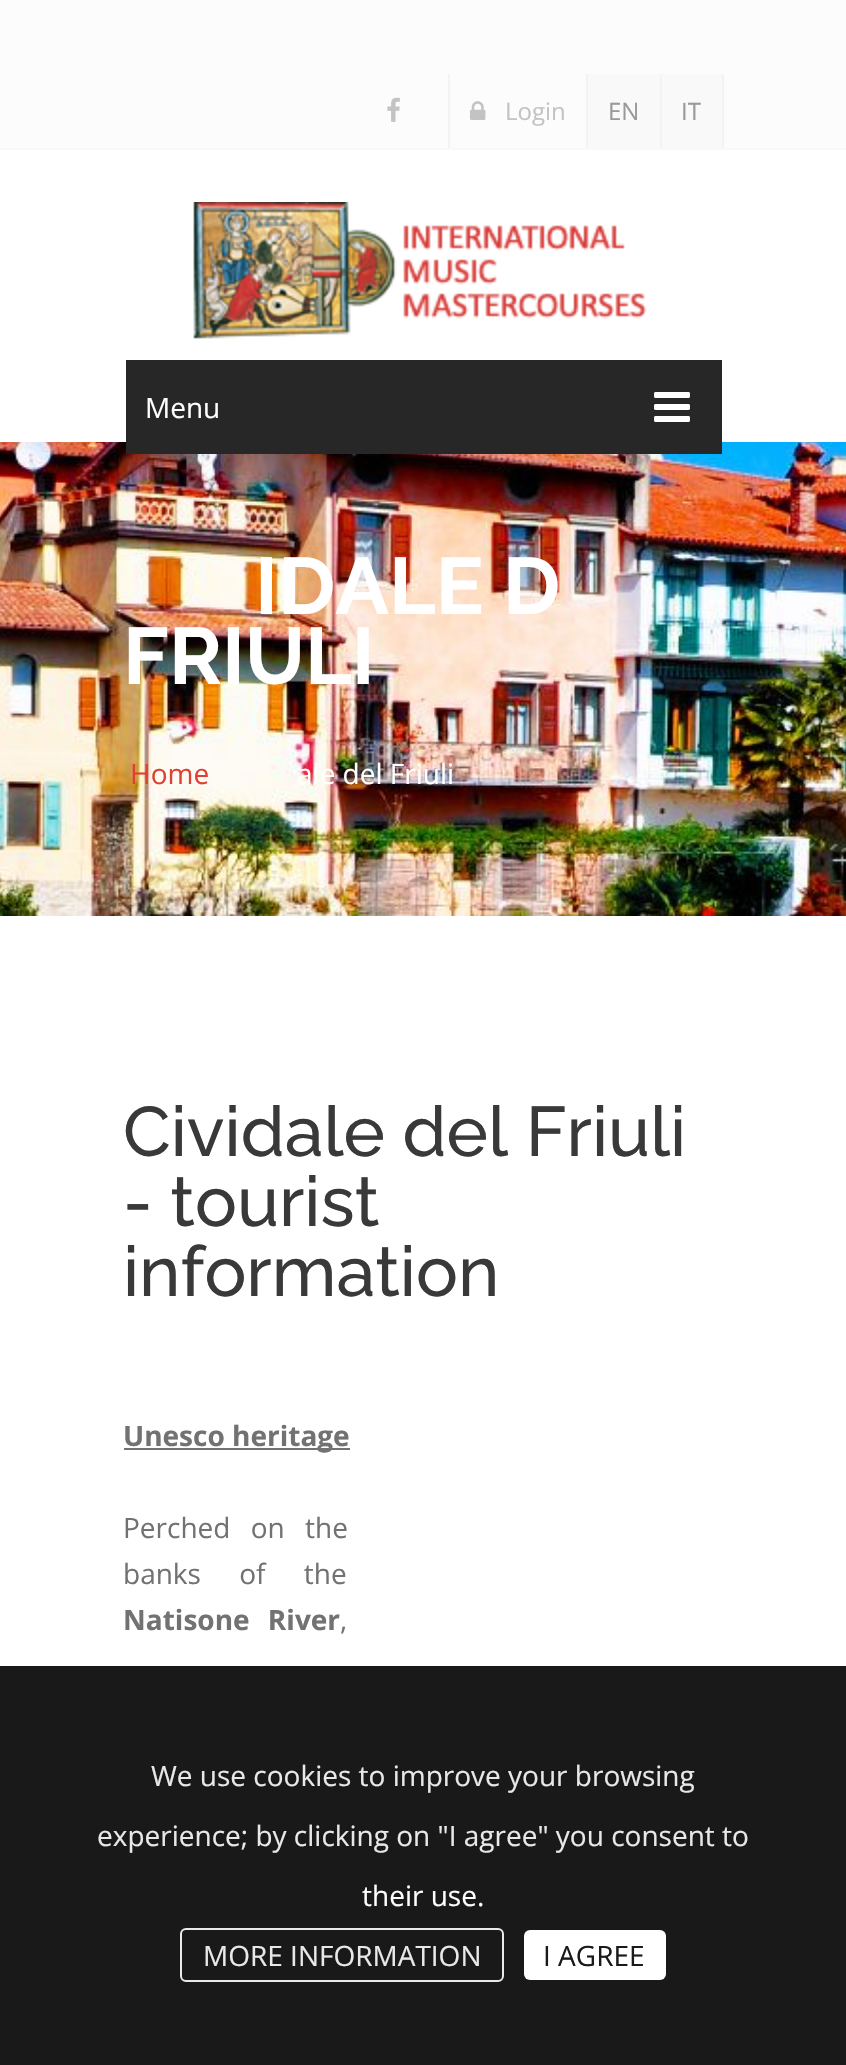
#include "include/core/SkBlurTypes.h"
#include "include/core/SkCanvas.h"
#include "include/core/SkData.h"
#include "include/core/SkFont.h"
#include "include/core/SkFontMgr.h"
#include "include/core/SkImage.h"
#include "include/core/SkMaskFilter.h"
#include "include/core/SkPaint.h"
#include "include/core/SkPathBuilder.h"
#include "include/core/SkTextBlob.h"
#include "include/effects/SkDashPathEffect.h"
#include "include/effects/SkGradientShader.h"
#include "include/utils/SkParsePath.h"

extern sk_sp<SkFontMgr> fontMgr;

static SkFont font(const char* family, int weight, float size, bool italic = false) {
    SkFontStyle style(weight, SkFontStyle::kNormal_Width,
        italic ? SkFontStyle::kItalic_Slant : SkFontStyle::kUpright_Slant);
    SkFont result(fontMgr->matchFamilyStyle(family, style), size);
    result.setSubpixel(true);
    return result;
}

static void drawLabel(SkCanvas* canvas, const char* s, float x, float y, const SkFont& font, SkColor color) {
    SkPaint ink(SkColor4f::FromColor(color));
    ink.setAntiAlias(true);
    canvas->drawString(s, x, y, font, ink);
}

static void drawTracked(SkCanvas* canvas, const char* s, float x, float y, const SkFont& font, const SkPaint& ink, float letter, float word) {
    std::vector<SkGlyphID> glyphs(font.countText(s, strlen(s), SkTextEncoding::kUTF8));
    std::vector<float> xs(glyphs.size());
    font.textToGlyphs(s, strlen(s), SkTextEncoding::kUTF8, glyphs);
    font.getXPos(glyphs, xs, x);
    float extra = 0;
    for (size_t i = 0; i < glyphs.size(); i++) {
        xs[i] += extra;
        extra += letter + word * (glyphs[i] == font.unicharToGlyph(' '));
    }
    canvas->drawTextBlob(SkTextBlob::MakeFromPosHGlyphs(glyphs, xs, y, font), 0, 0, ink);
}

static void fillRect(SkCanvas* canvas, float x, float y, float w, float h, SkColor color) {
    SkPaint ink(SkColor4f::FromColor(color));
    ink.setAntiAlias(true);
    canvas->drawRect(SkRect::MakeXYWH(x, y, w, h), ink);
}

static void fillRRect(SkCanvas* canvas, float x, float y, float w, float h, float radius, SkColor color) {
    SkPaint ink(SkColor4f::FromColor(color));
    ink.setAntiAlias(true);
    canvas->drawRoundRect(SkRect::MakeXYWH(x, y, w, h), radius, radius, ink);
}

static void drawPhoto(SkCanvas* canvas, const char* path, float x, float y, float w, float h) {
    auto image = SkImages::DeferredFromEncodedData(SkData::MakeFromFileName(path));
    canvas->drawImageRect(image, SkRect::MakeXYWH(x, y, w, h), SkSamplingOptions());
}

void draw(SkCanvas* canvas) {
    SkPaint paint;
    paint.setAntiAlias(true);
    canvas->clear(0xFFFFFFFF);
    fillRect(canvas, 0, 0, 846, 148, 0xFFFCFCFC);
    fillRect(canvas, 0, 148, 846, 2, 0xFFF9F9F9);
    drawPhoto(canvas, "assets/img1.png", 387, 97, 13, 25);
    fillRect(canvas, 586, 74, 2, 74, 0xFFF3F3F3);
    fillRect(canvas, 448, 74, 2, 74, 0xFFF3F3F3);
    drawPhoto(canvas, "assets/img2.png", 470, 101, 16, 19);
    SkFont font1 = font("Open Sans", 400, 24);
    drawLabel(canvas, "Login", 505, 120, font1, 0xFFC3C3C3);
    fillRect(canvas, 588, 74, 72, 74, 0xFFF9F9F9);
    fillRect(canvas, 660, 74, 2, 74, 0xFFF3F3F3);
    drawLabel(canvas, "EN", 608, 120, font1, 0xFF999999);
    fillRect(canvas, 662, 74, 60, 74, 0xFFF9F9F9);
    fillRect(canvas, 722, 74, 2, 74, 0xFFF3F3F3);
    drawLabel(canvas, "IT", 681, 120, font1, 0xFF999999);
    drawPhoto(canvas, "assets/img3.png", 193, 202, 454, 137);
    drawPhoto(canvas, "assets/img5.png", 0, 442, 846, 474);
    fillRect(canvas, 126, 360, 596, 94, 0xFF272727);
    SkFont font2 = font("Open Sans", 400, 28);
    drawLabel(canvas, "Menu", 145, 418, font2, 0xFFFFFFFF);
    drawPhoto(canvas, "assets/img4.png", 654, 392, 36, 30);
    SkFont font3 = font("Raleway", 700, 80);
    drawLabel(canvas, "IDALE D", 255, 614, font3, 0xFFFFFFFF);
    drawLabel(canvas, "FRIULI", 123, 684, font3, 0xFFFFFFFF);
    drawLabel(canvas, "Home", 130, 784, font2, 0xFFDE4132);
    drawLabel(canvas, "ale del Friuli", 297, 784, font2, 0xFFFFFFFF);
    SkFont font4 = font("Raleway", 500, 70);
    drawLabel(canvas, "Cividale del Friuli", 123, 1156, font4, 0xFF393939);
    drawLabel(canvas, "- tourist", 123, 1226, font4, 0xFF393939);
    drawLabel(canvas, "information", 123, 1296, font4, 0xFF393939);
    fillRect(canvas, 124, 1448, 226, 2, 0xFF727272);
    SkFont font5 = font("Open Sans", 700, 28);
    drawLabel(canvas, "Unesco heritage", 123, 1446, font5, 0xFF727272);
    paint.setColor(0xFF727272);
    drawTracked(canvas, "Perched on the", 123, 1538, font2, paint, 0, 13);
    drawTracked(canvas, "banks of the", 123, 1584, font2, paint, 0, 31);
    drawTracked(canvas, "Natisone River", 123, 1630, font5, paint, 0, 11);
    drawLabel(canvas, ",", 340, 1630, font2, 0xFF727272);
    fillRect(canvas, 0, 1666, 846, 399, 0xE6000000);
    drawLabel(canvas, "We use cookies to improve your browsing", 151, 1786, font2, 0xFFE8E8E8);
    drawLabel(canvas, "experience; by clicking on \"I agree\" you consent to", 97, 1846, font2, 0xFFE8E8E8);
    drawLabel(canvas, "their use.", 362, 1906, font2, 0xFFFFFFFF);
    paint.setStroke(true);
    paint.setStrokeWidth(2);
    paint.setColor(0xE6FFFFFF);
    canvas->drawRoundRect(SkRect::MakeXYWH(181, 1929, 322, 52), 5, 5, paint);
    drawLabel(canvas, "MORE INFORMATION", 203, 1966, font2, 0xFFE8E8E8);
    fillRRect(canvas, 524, 1930, 142, 50, 6, 0xFFFFFFFF);
    drawLabel(canvas, "I AGREE", 543, 1966, font2, 0xFF1A1A1A);
}
